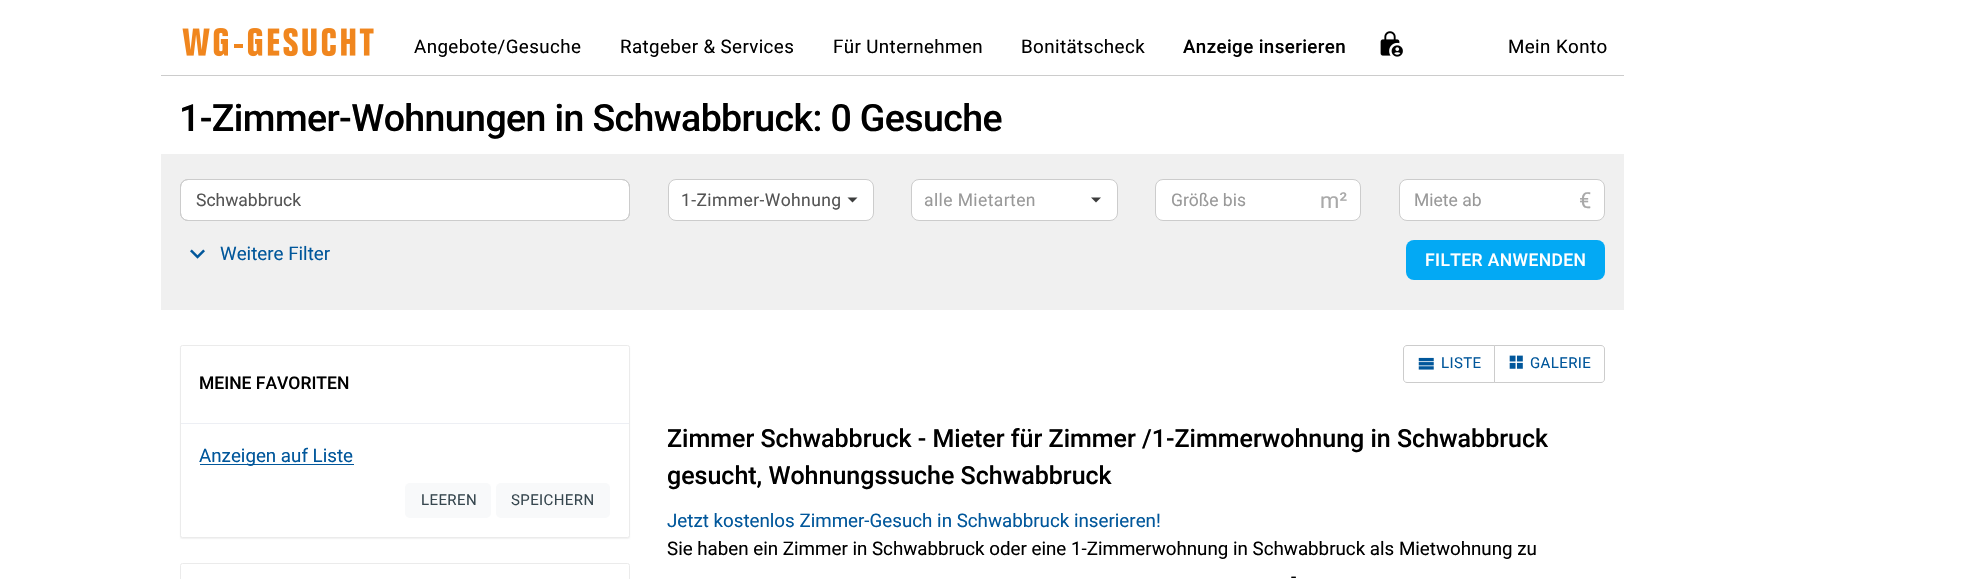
#include "include/core/SkBlurTypes.h"
#include "include/core/SkCanvas.h"
#include "include/core/SkData.h"
#include "include/core/SkFont.h"
#include "include/core/SkFontMgr.h"
#include "include/core/SkImage.h"
#include "include/core/SkMaskFilter.h"
#include "include/core/SkPaint.h"
#include "include/core/SkPathBuilder.h"
#include "include/core/SkTextBlob.h"
#include "include/effects/SkDashPathEffect.h"
#include "include/effects/SkGradientShader.h"
#include "include/utils/SkParsePath.h"

extern sk_sp<SkFontMgr> fontMgr;

static SkFont font(const char* family, int weight, float size, bool italic = false) {
    SkFontStyle style(weight, SkFontStyle::kNormal_Width,
        italic ? SkFontStyle::kItalic_Slant : SkFontStyle::kUpright_Slant);
    SkFont result(fontMgr->matchFamilyStyle(family, style), size);
    result.setSubpixel(true);
    return result;
}

static void drawLabel(SkCanvas* canvas, const char* s, float x, float y, const SkFont& font, SkColor color) {
    SkPaint ink(SkColor4f::FromColor(color));
    ink.setAntiAlias(true);
    canvas->drawString(s, x, y, font, ink);
}

static void drawTracked(SkCanvas* canvas, const char* s, float x, float y, const SkFont& font, const SkPaint& ink, float letter, float word) {
    std::vector<SkGlyphID> glyphs(font.countText(s, strlen(s), SkTextEncoding::kUTF8));
    std::vector<float> xs(glyphs.size());
    font.textToGlyphs(s, strlen(s), SkTextEncoding::kUTF8, glyphs);
    font.getXPos(glyphs, xs, x);
    float extra = 0;
    for (size_t i = 0; i < glyphs.size(); i++) {
        xs[i] += extra;
        extra += letter + word * (glyphs[i] == font.unicharToGlyph(' '));
    }
    canvas->drawTextBlob(SkTextBlob::MakeFromPosHGlyphs(glyphs, xs, y, font), 0, 0, ink);
}

static void fillRect(SkCanvas* canvas, float x, float y, float w, float h, SkColor color) {
    SkPaint ink(SkColor4f::FromColor(color));
    ink.setAntiAlias(true);
    canvas->drawRect(SkRect::MakeXYWH(x, y, w, h), ink);
}

static void fillRRect(SkCanvas* canvas, float x, float y, float w, float h, float radius, SkColor color) {
    SkPaint ink(SkColor4f::FromColor(color));
    ink.setAntiAlias(true);
    canvas->drawRoundRect(SkRect::MakeXYWH(x, y, w, h), radius, radius, ink);
}

static void drawPhoto(SkCanvas* canvas, const char* path, float x, float y, float w, float h) {
    auto image = SkImages::DeferredFromEncodedData(SkData::MakeFromFileName(path));
    canvas->drawImageRect(image, SkRect::MakeXYWH(x, y, w, h), SkSamplingOptions());
}

static SkPath parsePath(const char* data, bool evenOdd = false) {
    SkPath result = *SkParsePath::FromSVGString(data);
    if (evenOdd) result.setFillType(SkPathFillType::kEvenOdd);
    return result;
}

void draw(SkCanvas* canvas) {
    SkPaint paint;
    paint.setAntiAlias(true);
    canvas->clear(0xFFFFFFFF);
    fillRect(canvas, 161, 75, 1463, 1, 0xFFCCCCCC);
    drawPhoto(canvas, "assets/img1.png", 182, 28, 192, 29);
    SkFont font1 = font("Roboto", 400, 18.75f);
    paint.setColor(0xFF000000);
    drawTracked(canvas, "Angebote/Gesuche", 414, 53, font1, paint, 0.4f, 0);
    drawTracked(canvas, "Ratgeber & Services", 620, 53, font1, paint, 0.4f, 0);
    drawTracked(canvas, "Für Unternehmen", 833, 53, font1, paint, 0.4f, 0);
    drawTracked(canvas, "Bonitätscheck", 1021, 53, font1, paint, 0.4f, 0);
    SkFont font2 = font("Roboto", 500, 18.75f);
    drawTracked(canvas, "Anzeige inserieren", 1183, 53, font2, paint, 0.4f, 0);
    drawPhoto(canvas, "assets/img2.png", 1380, 31, 23, 26);
    drawTracked(canvas, "Mein Konto", 1508, 53, font1, paint, 0.4f, 0);
    SkFont font3 = font("Roboto", 500, 37.5f);
    drawTracked(canvas, "1-Zimmer-Wohnungen in Schwabbruck: 0 Gesuche", 179, 131, font3, paint, -0.6f, 0);
    fillRect(canvas, 161, 154, 1463, 156, 0xFFF0F0F0);
    paint.setColor(0xFFFFFFFF);
    canvas->drawRoundRect(SkRect::MakeXYWH(180.5f, 179.5f, 449, 41), 7.5f, 7.5f, paint);
    paint.setStroke(true);
    paint.setStrokeWidth(1);
    paint.setColor(0xFFCCCCCC);
    canvas->drawRoundRect(SkRect::MakeXYWH(180.5f, 179.5f, 449, 41), 7.5f, 7.5f, paint);
    canvas->drawRoundRect(SkRect::MakeXYWH(180.5f, 179.5f, 449, 41), 7.5f, 7.5f, paint);
    SkFont font4 = font("Roboto", 400, 17.5f);
    drawLabel(canvas, "Schwabbruck", 196, 206, font4, 0xFF555555);
    paint.setStroke(false);
    paint.setColor(0xFFFFFFFF);
    canvas->drawRoundRect(SkRect::MakeXYWH(668.5f, 179.5f, 205, 41), 7.5f, 7.5f, paint);
    paint.setStroke(true);
    paint.setColor(0xFFCCCCCC);
    canvas->drawRoundRect(SkRect::MakeXYWH(668.5f, 179.5f, 205, 41), 7.5f, 7.5f, paint);
    paint.setStroke(false);
    paint.setColor(0xFF555555);
    drawTracked(canvas, "1-Zimmer-Wohnung", 681, 206, font4, paint, 0.4f, 0);
    paint.setColor(0xFF3C3D3D);
    canvas->drawPath(parsePath("M847.5 197.5H857.5L852.5 202.5Z"), paint);
    paint.setColor(0xFFFFFFFF);
    canvas->drawRoundRect(SkRect::MakeXYWH(911.5f, 179.5f, 206, 41), 7.5f, 7.5f, paint);
    paint.setStroke(true);
    paint.setColor(0xFFCCCCCC);
    canvas->drawRoundRect(SkRect::MakeXYWH(911.5f, 179.5f, 206, 41), 7.5f, 7.5f, paint);
    paint.setStroke(false);
    paint.setColor(0xFF999999);
    drawTracked(canvas, "alle Mietarten", 924, 206, font4, paint, 0.4f, 0);
    paint.setColor(0xFF3C3D3D);
    canvas->drawPath(parsePath("M1091 197.5H1101L1096 202.5Z"), paint);
    paint.setColor(0xFFFFFFFF);
    canvas->drawRoundRect(SkRect::MakeXYWH(1155.5f, 179.5f, 205, 41), 7.5f, 7.5f, paint);
    paint.setStroke(true);
    paint.setColor(0xFFCCCCCC);
    canvas->drawRoundRect(SkRect::MakeXYWH(1155.5f, 179.5f, 205, 41), 7.5f, 7.5f, paint);
    drawLabel(canvas, "Größe bis", 1171, 206, font4, 0xFF999999);
    SkFont font5 = font("Roboto", 400, 22);
    drawLabel(canvas, "m²", 1320, 208, font5, 0xFFA9A9A9);
    paint.setStroke(false);
    paint.setColor(0xFFFFFFFF);
    canvas->drawRoundRect(SkRect::MakeXYWH(1399.5f, 179.5f, 205, 41), 7.5f, 7.5f, paint);
    paint.setStroke(true);
    paint.setColor(0xFFCCCCCC);
    canvas->drawRoundRect(SkRect::MakeXYWH(1399.5f, 179.5f, 205, 41), 7.5f, 7.5f, paint);
    drawLabel(canvas, "Miete ab", 1414, 206, font4, 0xFF999999);
    drawLabel(canvas, "€", 1579, 208, font5, 0xFFA9A9A9);
    drawPhoto(canvas, "assets/img3.png", 190, 249, 15, 10);
    drawLabel(canvas, "Weitere Filter", 220, 260, font1, 0xFF01579B);
    fillRRect(canvas, 1406, 240, 199, 40, 8, 0xFF03A9F4);
    SkFont font6 = font("Roboto", 500, 17.5f);
    paint.setStroke(false);
    paint.setColor(0xFFFFFFFF);
    drawTracked(canvas, "FILTER ANWENDEN", 1425, 266, font6, paint, 0.4f, 0);
    paint.setColor(0x0D000000);
    paint.setMaskFilter(SkMaskFilter::MakeBlur(kNormal_SkBlurStyle, 0.5f));
    canvas->drawRoundRect(SkRect::MakeXYWH(180, 346, 450, 193), 2.5f, 2.5f, paint);
    paint.setMaskFilter(nullptr);
    paint.setColor(0xFFFFFFFF);
    canvas->drawRoundRect(SkRect::MakeXYWH(180.5f, 345.5f, 449, 192), 2, 2, paint);
    paint.setStroke(true);
    paint.setColor(0xFFEBEBEB);
    canvas->drawRoundRect(SkRect::MakeXYWH(180.5f, 345.5f, 449, 192), 2, 2, paint);
    fillRect(canvas, 181, 423, 448, 1, 0xFFEDEFF4);
    drawLabel(canvas, "MEINE FAVORITEN", 199, 389, font6, 0xFF000000);
    fillRect(canvas, 200, 464, 154, 1, 0xFF01579B);
    drawLabel(canvas, "Anzeigen auf Liste", 199, 462, font1, 0xFF01579B);
    fillRRect(canvas, 405, 483, 86, 35, 5, 0xFFF8F9FA);
    SkFont font7 = font("Roboto", 400, 15);
    paint.setStroke(false);
    paint.setColor(0xFF37474F);
    drawTracked(canvas, "LEEREN", 421, 505, font7, paint, 0.4f, 0);
    fillRRect(canvas, 496, 483, 114, 35, 5, 0xFFF8F9FA);
    drawTracked(canvas, "SPEICHERN", 511, 505, font7, paint, 0.4f, 0);
    paint.setStroke(true);
    paint.setColor(0xFFEBEBEB);
    canvas->drawRoundRect(SkRect::MakeXYWH(180.5f, 563.5f, 449, 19), 2, 2, paint);
    paint.setColor(0xFFCCCCCC);
    canvas->drawPath(parsePath("M1407 345.5H1494.5V382.5H1407C1405 382.5 1403.5 381 1403.5 379V349C1403.5 347 1405 345.5 1407 345.5Z"), paint);
    drawPhoto(canvas, "assets/img4.png", 1418, 357, 16, 13);
    paint.setStroke(false);
    paint.setColor(0xFF01579B);
    drawTracked(canvas, "LISTE", 1441, 368, font7, paint, 0.4f, 0);
    paint.setColor(0xFFFFFFFF);
    canvas->drawPath(parsePath("M1494.5 345.5H1601C1603 345.5 1604.5 347 1604.5 349V379C1604.5 381 1603 382.5 1601 382.5H1494.5Z"), paint);
    paint.setStroke(true);
    paint.setColor(0xFFCCCCCC);
    canvas->drawPath(parsePath("M1494.5 345.5H1601C1603 345.5 1604.5 347 1604.5 349V379C1604.5 381 1603 382.5 1601 382.5H1494.5Z"), paint);
    drawPhoto(canvas, "assets/img5.png", 1509, 355, 14, 14);
    paint.setStroke(false);
    paint.setColor(0xFF01579B);
    drawTracked(canvas, "GALERIE", 1530, 368, font7, paint, 0.4f, 0);
    SkFont font8 = font("Roboto", 500, 25);
    drawLabel(canvas, "Zimmer Schwabbruck - Mieter für Zimmer /1-Zimmerwohnung in Schwabbruck", 667, 447, font8, 0xFF000000);
    drawLabel(canvas, "gesucht, Wohnungssuche Schwabbruck", 667, 484, font8, 0xFF000000);
    drawLabel(canvas, "Jetzt kostenlos Zimmer-Gesuch in Schwabbruck inserieren!", 667, 527, font1, 0xFF01579B);
    drawLabel(canvas, "Sie haben ein Zimmer in Schwabbruck oder eine 1-Zimmerwohnung in Schwabbruck als Mietwohnung zu", 667, 555, font1, 0xFF000000);
    drawLabel(canvas, "-", 1291, 583, font1, 0xFF000000);
}
